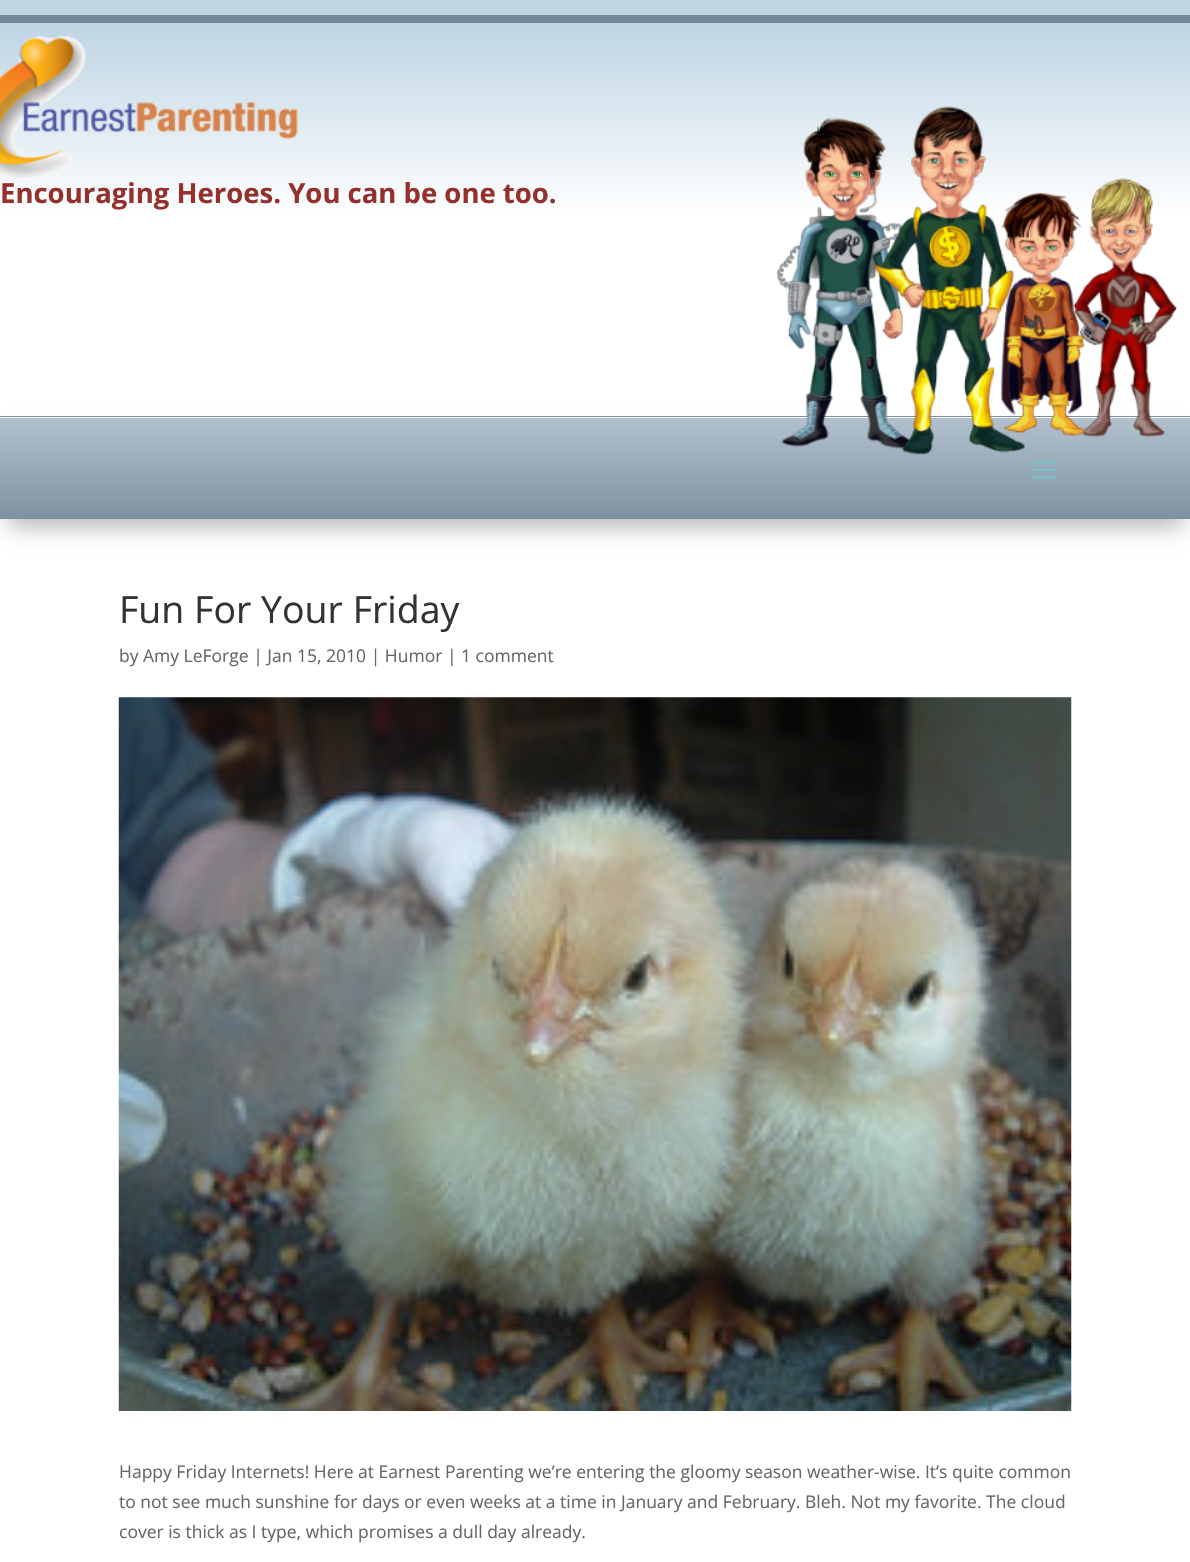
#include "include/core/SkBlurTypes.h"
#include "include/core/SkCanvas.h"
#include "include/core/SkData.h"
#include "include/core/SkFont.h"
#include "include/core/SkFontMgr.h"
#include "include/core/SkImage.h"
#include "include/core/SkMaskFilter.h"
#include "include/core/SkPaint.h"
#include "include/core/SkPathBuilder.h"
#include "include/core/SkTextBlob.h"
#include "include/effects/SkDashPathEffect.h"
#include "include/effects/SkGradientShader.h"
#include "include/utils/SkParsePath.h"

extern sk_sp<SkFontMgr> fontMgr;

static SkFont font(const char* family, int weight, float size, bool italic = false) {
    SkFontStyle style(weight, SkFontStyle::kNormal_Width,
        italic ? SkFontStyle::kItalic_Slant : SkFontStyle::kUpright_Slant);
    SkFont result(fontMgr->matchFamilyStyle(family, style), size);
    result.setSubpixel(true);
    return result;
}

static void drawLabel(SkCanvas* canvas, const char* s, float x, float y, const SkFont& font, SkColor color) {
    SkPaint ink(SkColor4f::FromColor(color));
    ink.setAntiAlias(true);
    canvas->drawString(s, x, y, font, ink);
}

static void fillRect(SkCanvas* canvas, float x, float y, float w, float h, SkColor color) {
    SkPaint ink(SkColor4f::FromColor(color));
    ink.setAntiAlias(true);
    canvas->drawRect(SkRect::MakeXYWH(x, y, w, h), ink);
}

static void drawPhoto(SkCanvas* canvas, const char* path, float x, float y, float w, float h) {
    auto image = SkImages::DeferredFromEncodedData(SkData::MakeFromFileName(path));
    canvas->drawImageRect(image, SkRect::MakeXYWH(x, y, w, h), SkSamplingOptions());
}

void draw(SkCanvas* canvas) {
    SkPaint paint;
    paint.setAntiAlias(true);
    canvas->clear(0xFFFFFFFF);
    {
        const SkColor colors[] = {0xFFFFFFFF, 0xFFBDD4E3};
        const float stops[] = {0.2f, 1};
        const SkPoint ends[] = {{595, -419}, {595, 15}};
        paint.setShader(SkGradientShader::MakeLinear(ends, colors, stops, 2, SkTileMode::kClamp));
        paint.setAlpha(255);
    }
    canvas->drawRect(SkRect::MakeXYWH(0, 0, 1190, 15), paint);
    fillRect(canvas, 0, 15, 1190, 8, 0xFF748A9B);
    {
        const SkColor colors[] = {0xFFBDD4E3, 0xFFFFFFFF};
        const float stops[] = {0, 0.5f};
        const SkPoint ends[] = {{595, 22}, {595, 410}};
        paint.setShader(SkGradientShader::MakeLinear(ends, colors, stops, 2, SkTileMode::kClamp));
        paint.setAlpha(255);
    }
    canvas->drawRect(SkRect::MakeXYWH(0, 23, 1190, 186), paint);
    drawPhoto(canvas, "assets/img1.png", 0, 35, 298, 144);
    SkFont font1 = font("Open Sans", 700, 27.5f);
    drawLabel(canvas, "Encouraging Heroes. You can be one too.", 0, 203, font1, 0xFF95312D);
    paint.setShader(nullptr);
    paint.setColor(0x4D000000);
    paint.setMaskFilter(SkMaskFilter::MakeBlur(kNormal_SkBlurStyle, 11));
    canvas->drawRect(SkRect::MakeXYWH(8, 439, 1175, 87), paint);
    paint.setMaskFilter(nullptr);
    {
        const SkColor colors[] = {0xFFB3C1CE, 0xFF7D92A1};
        const float stops[] = {0, 1};
        const SkPoint ends[] = {{595, 417}, {595, 519}};
        paint.setShader(SkGradientShader::MakeLinear(ends, colors, stops, 2, SkTileMode::kClamp));
        paint.setAlpha(255);
    }
    canvas->drawRect(SkRect::MakeXYWH(0, 418, 1190, 101), paint);
    fillRect(canvas, 0, 416, 1190, 1, 0xFF7D92A1);
    drawPhoto(canvas, "assets/img2.png", 776, 106, 401, 349);
    drawPhoto(canvas, "assets/img3.png", 1031, 461, 26, 18);
    SkFont font2 = font("Open Sans", 400, 37.5f);
    drawLabel(canvas, "Fun For Your Friday", 119, 623, font2, 0xFF333333);
    SkFont font3 = font("Open Sans", 400, 17.5f);
    drawLabel(canvas, "by Amy LeForge | Jan 15, 2010 | Humor | 1 comment", 119, 662, font3, 0xFF666666);
    drawPhoto(canvas, "assets/img4.png", 118, 697, 954, 714);
    drawLabel(canvas, "Happy Friday Internets! Here at Earnest Parenting we’re entering the gloomy season weather-wise. It’s quite common", 119, 1478, font3, 0xFF666666);
    drawLabel(canvas, "to not see much sunshine for days or even weeks at a time in January and February. Bleh. Not my favorite. The cloud", 119, 1508, font3, 0xFF666666);
    drawLabel(canvas, "cover is thick as I type, which promises a dull day already.", 119, 1538, font3, 0xFF666666);
}
